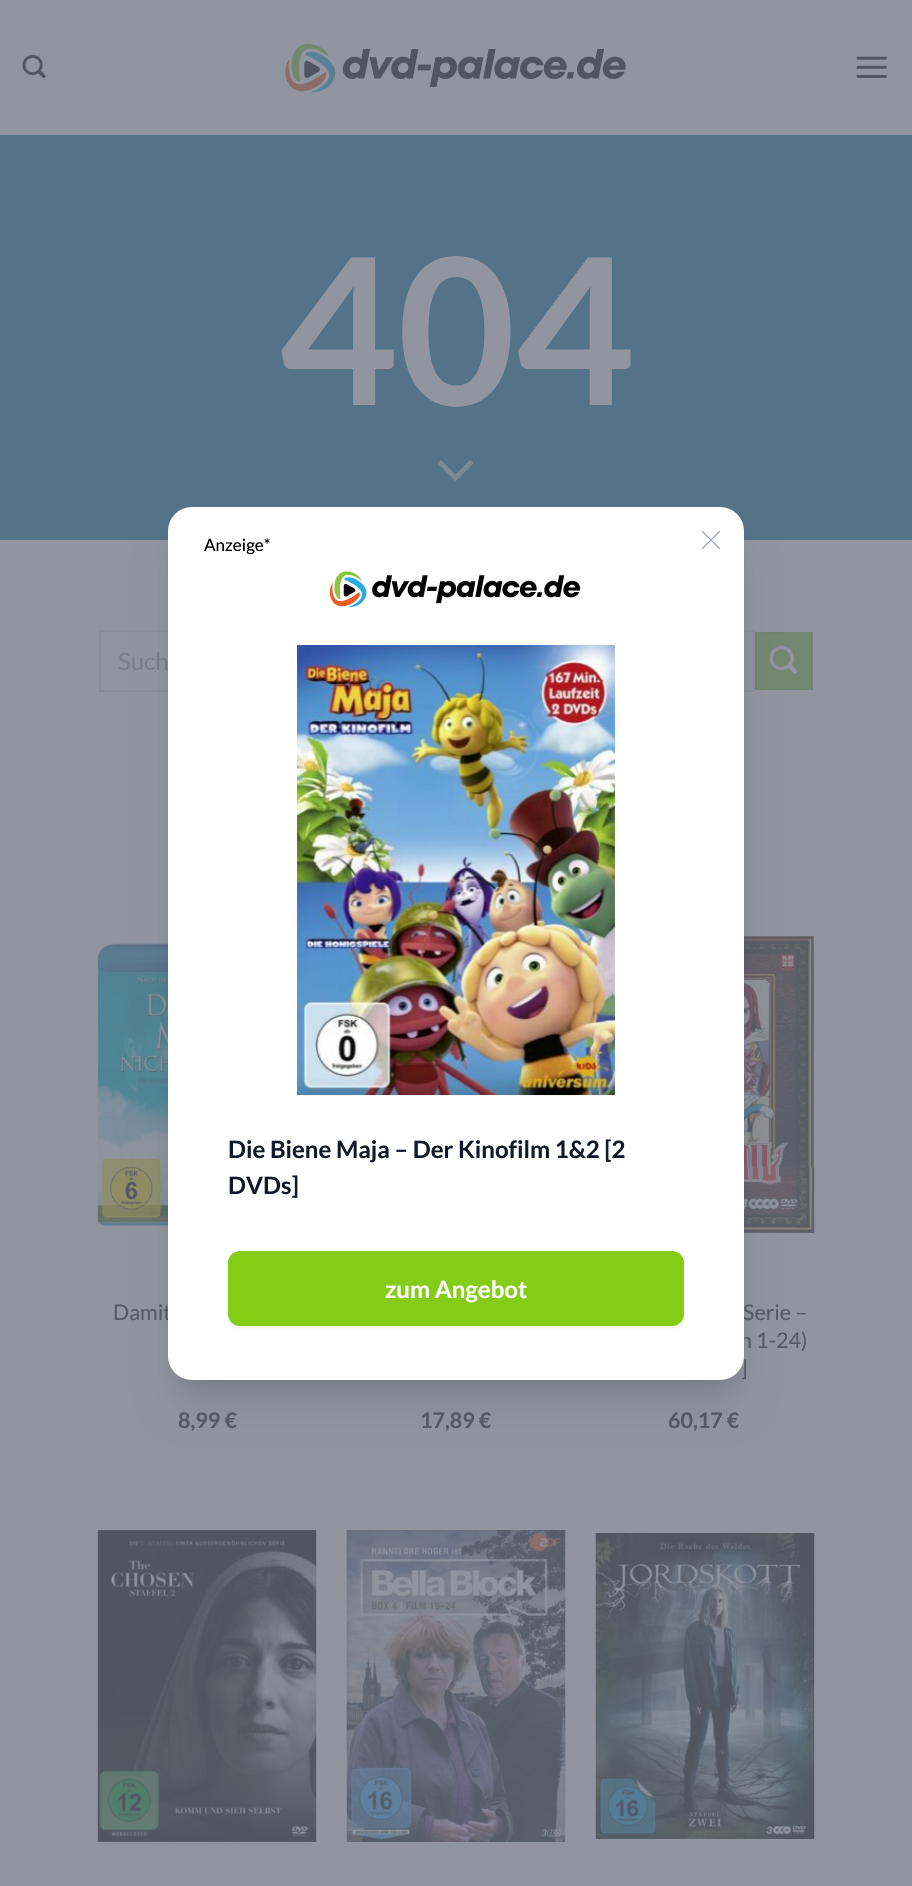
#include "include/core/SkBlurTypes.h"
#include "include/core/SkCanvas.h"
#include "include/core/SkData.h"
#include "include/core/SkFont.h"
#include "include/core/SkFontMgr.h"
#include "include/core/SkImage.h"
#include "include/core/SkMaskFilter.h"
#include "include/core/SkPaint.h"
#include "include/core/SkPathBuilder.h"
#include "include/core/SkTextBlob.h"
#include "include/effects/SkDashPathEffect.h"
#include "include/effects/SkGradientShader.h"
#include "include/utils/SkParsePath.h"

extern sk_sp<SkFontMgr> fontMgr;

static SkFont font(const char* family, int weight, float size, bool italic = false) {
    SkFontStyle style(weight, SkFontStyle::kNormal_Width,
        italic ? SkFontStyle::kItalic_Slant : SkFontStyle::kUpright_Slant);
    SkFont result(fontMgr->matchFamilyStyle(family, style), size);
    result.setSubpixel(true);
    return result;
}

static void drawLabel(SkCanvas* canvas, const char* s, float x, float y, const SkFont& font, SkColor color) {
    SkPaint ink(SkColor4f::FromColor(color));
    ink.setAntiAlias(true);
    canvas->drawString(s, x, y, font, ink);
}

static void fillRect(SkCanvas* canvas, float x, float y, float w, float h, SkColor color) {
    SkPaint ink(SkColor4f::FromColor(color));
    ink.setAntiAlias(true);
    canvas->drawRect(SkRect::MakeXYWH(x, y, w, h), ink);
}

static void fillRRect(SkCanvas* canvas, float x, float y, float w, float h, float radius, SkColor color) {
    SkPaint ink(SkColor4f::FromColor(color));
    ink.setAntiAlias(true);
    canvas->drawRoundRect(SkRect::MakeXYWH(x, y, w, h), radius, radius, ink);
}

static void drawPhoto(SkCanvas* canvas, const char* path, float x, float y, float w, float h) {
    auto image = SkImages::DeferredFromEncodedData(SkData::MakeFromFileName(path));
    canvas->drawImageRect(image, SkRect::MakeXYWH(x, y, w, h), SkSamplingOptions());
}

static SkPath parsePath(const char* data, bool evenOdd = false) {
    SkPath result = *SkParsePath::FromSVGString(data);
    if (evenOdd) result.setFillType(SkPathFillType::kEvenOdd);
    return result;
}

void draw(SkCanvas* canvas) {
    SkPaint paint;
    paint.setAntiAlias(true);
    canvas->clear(0xFF9095A0);
    drawPhoto(canvas, "assets/img1.png", 22, 54, 24, 24);
    drawPhoto(canvas, "assets/img2.png", 285, 43, 341, 50);
    drawPhoto(canvas, "assets/img3.png", 856, 56, 31, 22);
    fillRect(canvas, 0, 135, 912, 405, 0xFF547389);
    fillRect(canvas, 23, 135, 867, 2, 0xFF537085);
    SkFont font1 = font("Lato", 700, 204);
    drawLabel(canvas, "404", 279, 405, font1, 0xFF9095A0);
    drawPhoto(canvas, "assets/img4.png", 438, 460, 35, 21);
    paint.setStroke(true);
    paint.setStrokeWidth(2);
    paint.setColor(0xFF888D97);
    canvas->drawRect(SkRect::MakeXYWH(100, 631, 654, 60), paint);
    SkFont font2 = font("Lato", 400, 24);
    drawLabel(canvas, "Such", 118, 670, font2, 0xFF777E8C);
    paint.setStroke(false);
    paint.setColor(0xFF738770);
    canvas->drawRect(SkRect::MakeXYWH(756, 633, 56, 56), paint);
    paint.setStroke(true);
    paint.setColor(0xFF72856F);
    canvas->drawRect(SkRect::MakeXYWH(756, 633, 56, 56), paint);
    drawPhoto(canvas, "assets/img5.png", 769, 645, 29, 29);
    drawPhoto(canvas, "assets/img6.png", 97, 943, 71, 283);
    SkFont font3 = font("Lato", 400, 21.5f);
    drawLabel(canvas, "Damit", 113, 1320, font3, 0xFF555A64);
    SkFont font4 = font("Lato", 700, 21.5f);
    drawLabel(canvas, "8,99 €", 178, 1428, font4, 0xFF555A64);
    drawLabel(canvas, "17,89 €", 420, 1428, font4, 0xFF555A64);
    drawPhoto(canvas, "assets/img7.png", 744, 936, 71, 297);
    drawLabel(canvas, "Serie –", 743, 1320, font3, 0xFF555A64);
    drawLabel(canvas, "n 1-24)", 740, 1348, font3, 0xFF555A64);
    drawLabel(canvas, "]", 741, 1376, font3, 0xFF555A64);
    drawLabel(canvas, "60,17 €", 668, 1428, font4, 0xFF555A64);
    drawPhoto(canvas, "assets/img8.png", 97, 1530, 220, 312);
    drawPhoto(canvas, "assets/img9.png", 346, 1530, 220, 312);
    drawPhoto(canvas, "assets/img10.png", 595, 1533, 220, 306);
    paint.setStroke(false);
    paint.setColor(0x1A000000);
    paint.setMaskFilter(SkMaskFilter::MakeBlur(kNormal_SkBlurStyle, 7.5f));
    canvas->drawRoundRect(SkRect::MakeXYWH(177, 528, 558, 855), 15, 15, paint);
    paint.setMaskFilter(nullptr);
    paint.setMaskFilter(SkMaskFilter::MakeBlur(kNormal_SkBlurStyle, 19));
    canvas->drawRoundRect(SkRect::MakeXYWH(176, 545, 561, 858), 17, 17, paint);
    paint.setMaskFilter(nullptr);
    fillRRect(canvas, 168, 507, 576, 873, 24, 0xFFFFFFFF);
    SkFont font5 = font("Lato", 400, 17);
    drawLabel(canvas, "Anzeige*", 204, 551, font5, 0xFF000000);
    paint.setStroke(true);
    paint.setStrokeWidth(1.1f);
    paint.setStrokeCap(SkPaint::kRound_Cap);
    paint.setStrokeJoin(SkPaint::kRound_Join);
    paint.setColor(0xFF9CA3AF);
    canvas->drawPath(parsePath("M702.5 548.5L719.5 531.5M702.5 531.5L719.5 548.5"), paint);
    drawPhoto(canvas, "assets/img11.png", 329, 571, 252, 36);
    drawPhoto(canvas, "assets/img12.png", 297, 645, 318, 451);
    SkFont font6 = font("Lato", 700, 24);
    drawLabel(canvas, "Die Biene Maja – Der Kinofilm 1&2 [2", 228, 1158, font6, 0xFF111827);
    drawLabel(canvas, "DVDs]", 228, 1194, font6, 0xFF111827);
    paint.setStroke(false);
    paint.setColor(0x0D000000);
    paint.setMaskFilter(SkMaskFilter::MakeBlur(kNormal_SkBlurStyle, 1.5f));
    canvas->drawRoundRect(SkRect::MakeXYWH(228, 1253, 456, 75), 12, 12, paint);
    paint.setMaskFilter(nullptr);
    fillRRect(canvas, 228, 1251, 456, 75, 12, 0xFF84CC16);
    drawLabel(canvas, "zum Angebot", 385, 1298, font6, 0xFFFFFFFF);
}
